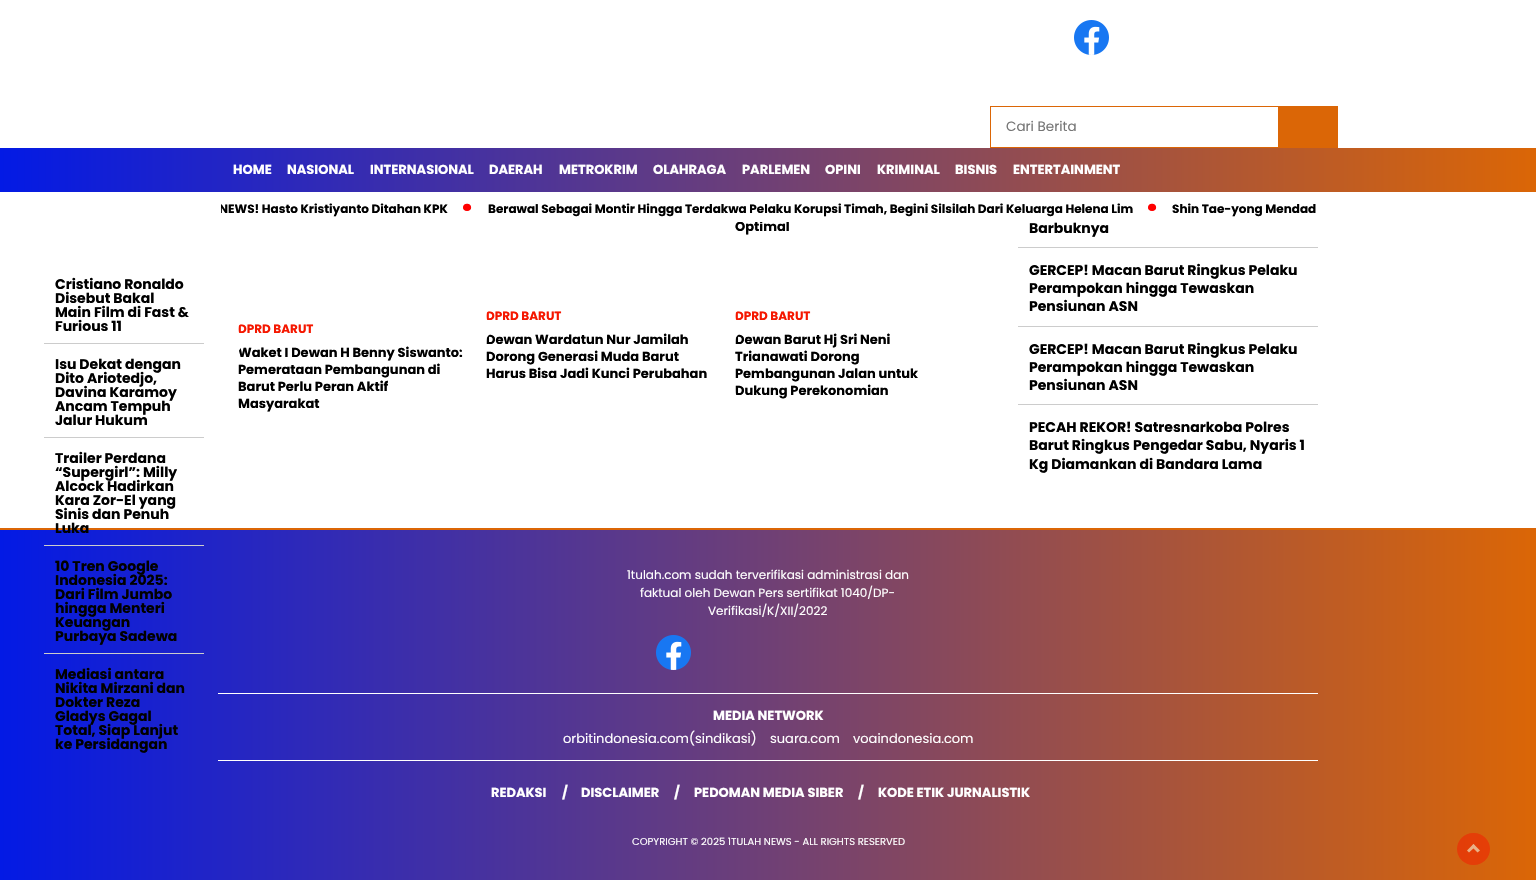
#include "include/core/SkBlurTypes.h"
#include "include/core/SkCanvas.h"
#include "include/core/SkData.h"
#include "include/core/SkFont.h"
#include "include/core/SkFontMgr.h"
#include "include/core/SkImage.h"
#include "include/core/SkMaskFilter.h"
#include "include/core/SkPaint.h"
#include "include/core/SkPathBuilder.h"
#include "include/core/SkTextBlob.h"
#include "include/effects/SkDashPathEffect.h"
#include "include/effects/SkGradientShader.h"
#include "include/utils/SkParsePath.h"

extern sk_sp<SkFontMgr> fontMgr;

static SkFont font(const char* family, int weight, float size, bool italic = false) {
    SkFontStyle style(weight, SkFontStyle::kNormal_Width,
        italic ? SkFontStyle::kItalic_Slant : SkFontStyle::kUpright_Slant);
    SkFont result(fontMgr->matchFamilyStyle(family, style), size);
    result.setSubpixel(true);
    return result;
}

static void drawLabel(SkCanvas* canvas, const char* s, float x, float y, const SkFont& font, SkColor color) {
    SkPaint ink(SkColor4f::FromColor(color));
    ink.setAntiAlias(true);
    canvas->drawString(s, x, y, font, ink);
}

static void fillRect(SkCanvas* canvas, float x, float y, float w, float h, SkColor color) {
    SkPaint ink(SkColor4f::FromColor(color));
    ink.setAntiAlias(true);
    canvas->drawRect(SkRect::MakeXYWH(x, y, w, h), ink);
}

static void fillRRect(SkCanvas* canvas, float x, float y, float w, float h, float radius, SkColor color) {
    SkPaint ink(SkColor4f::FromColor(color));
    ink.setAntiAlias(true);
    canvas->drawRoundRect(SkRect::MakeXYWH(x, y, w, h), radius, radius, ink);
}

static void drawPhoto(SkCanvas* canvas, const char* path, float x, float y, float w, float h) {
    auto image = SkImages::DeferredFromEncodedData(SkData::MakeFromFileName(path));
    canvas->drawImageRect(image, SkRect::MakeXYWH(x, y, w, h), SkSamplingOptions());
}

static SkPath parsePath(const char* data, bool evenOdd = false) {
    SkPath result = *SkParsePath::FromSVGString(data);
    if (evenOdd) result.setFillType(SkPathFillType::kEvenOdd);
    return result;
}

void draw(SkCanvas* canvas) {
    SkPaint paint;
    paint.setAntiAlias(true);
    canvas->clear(0xFFFFFFFF);
    SkFont font1 = font("Poppins", 700, 13);
    drawLabel(canvas, "Optimal", 735, 231, font1, 0xFF000000);
    fillRect(canvas, 738, 220, 51, 2, 0xFFFFFFFF);
    drawPhoto(canvas, "assets/img1.png", 1074, 20, 35, 35);
    paint.setStroke(true);
    paint.setStrokeWidth(1);
    paint.setColor(0xFFDB6606);
    canvas->drawRect(SkRect::MakeXYWH(990.5f, 106.5f, 288, 41), paint);
    SkFont font2 = font("Poppins", 400, 13.5f);
    drawLabel(canvas, "Cari Berita", 1006, 131, font2, 0xFF757575);
    fillRect(canvas, 1279, 106, 59, 42, 0xFFDB6606);
    paint.setStroke(false);
    {
        const SkColor colors[] = {0xFF031AE5, 0xFFDB6606};
        const float stops[] = {0, 1};
        const SkPoint ends[] = {{0, 170}, {1536, 170}};
        paint.setShader(SkGradientShader::MakeLinear(ends, colors, stops, 2, SkTileMode::kClamp));
        paint.setAlpha(255);
    }
    canvas->drawRect(SkRect::MakeXYWH(0, 148, 1536, 44), paint);
    drawLabel(canvas, "HOME", 233, 174, font1, 0xFFFFFFFF);
    drawLabel(canvas, "NASIONAL", 287, 174, font1, 0xFFFFFFFF);
    drawLabel(canvas, "INTERNASIONAL", 370, 174, font1, 0xFFFFFFFF);
    drawLabel(canvas, "DAERAH", 489, 174, font1, 0xFFFFFFFF);
    drawLabel(canvas, "METROKRIM", 559, 174, font1, 0xFFFFFFFF);
    drawLabel(canvas, "OLAHRAGA", 653, 174, font1, 0xFFFFFFFF);
    drawLabel(canvas, "PARLEMEN", 742, 174, font1, 0xFFFFFFFF);
    drawLabel(canvas, "OPINI", 825, 174, font1, 0xFFFFFFFF);
    drawLabel(canvas, "KRIMINAL", 877, 174, font1, 0xFFFFFFFF);
    drawLabel(canvas, "BISNIS", 955, 174, font1, 0xFFFFFFFF);
    drawLabel(canvas, "ENTERTAINMENT", 1013, 174, font1, 0xFFFFFFFF);
    canvas->save();
    canvas->clipRect(SkRect::MakeXYWH(221, 192, 1095, 30));
    SkFont font3 = font("Poppins", 700, 12);
    drawLabel(canvas, "NEWS! Hasto Kristiyanto Ditahan KPK", 219, 213, font3, 0xFF000000);
    canvas->restore();
    SkFont font4 = font("Poppins", 700, 40);
    drawLabel(canvas, "·", 461, 220, font4, 0xFFFF0000);
    drawLabel(canvas, "Berawal Sebagai Montir Hingga Terdakwa Pelaku Korupsi Timah, Begini Silsilah Dari Keluarga Helena Lim", 488, 213, font3, 0xFF000000);
    drawLabel(canvas, "·", 1146, 220, font4, 0xFFFF0000);
    drawLabel(canvas, "Shin Tae-yong Mendad", 1172, 213, font3, 0xFF000000);
    fillRect(canvas, 44, 343, 160, 1, 0xFFCCCCCC);
    SkFont font5 = font("Poppins", 700, 14);
    drawLabel(canvas, "Cristiano Ronaldo", 55, 289, font5, 0xFF000000);
    drawLabel(canvas, "Disebut Bakal", 55, 303, font5, 0xFF000000);
    drawLabel(canvas, "Main Film di Fast &", 55, 317, font5, 0xFF000000);
    drawLabel(canvas, "Furious 11", 55, 331, font5, 0xFF000000);
    fillRect(canvas, 44, 437, 160, 1, 0xFFCCCCCC);
    drawLabel(canvas, "Isu Dekat dengan", 55, 369, font5, 0xFF000000);
    drawLabel(canvas, "Dito Ariotedjo,", 55, 383, font5, 0xFF000000);
    drawLabel(canvas, "Davina Karamoy", 55, 397, font5, 0xFF000000);
    drawLabel(canvas, "Ancam Tempuh", 55, 411, font5, 0xFF000000);
    drawLabel(canvas, "Jalur Hukum", 55, 425, font5, 0xFF000000);
    {
        const SkColor colors[] = {0xFF031AE5, 0xFFDB6606};
        const float stops[] = {0, 1};
        const SkPoint ends[] = {{0, 705}, {1536, 705}};
        paint.setShader(SkGradientShader::MakeLinear(ends, colors, stops, 2, SkTileMode::kClamp));
        paint.setAlpha(255);
    }
    canvas->drawRect(SkRect::MakeXYWH(0, 530, 1536, 350), paint);
    fillRect(canvas, 44, 545, 160, 1, 0xFFCCCCCC);
    drawLabel(canvas, "Trailer Perdana", 55, 463, font5, 0xFF000000);
    drawLabel(canvas, "“Supergirl”: Milly", 55, 477, font5, 0xFF000000);
    drawLabel(canvas, "Alcock Hadirkan", 55, 491, font5, 0xFF000000);
    drawLabel(canvas, "Kara Zor-El yang", 55, 505, font5, 0xFF000000);
    drawLabel(canvas, "Sinis dan Penuh", 55, 519, font5, 0xFF000000);
    fillRect(canvas, 0, 528, 1536, 2, 0xFFDB6606);
    drawLabel(canvas, "Luka", 55, 533, font5, 0xFF000000);
    fillRect(canvas, 44, 653, 160, 1, 0xFFCCCCCC);
    drawLabel(canvas, "10 Tren Google", 55, 571, font5, 0xFF000000);
    drawLabel(canvas, "Indonesia 2025:", 55, 585, font5, 0xFF000000);
    drawLabel(canvas, "Dari Film Jumbo", 55, 599, font5, 0xFF000000);
    drawLabel(canvas, "hingga Menteri", 55, 613, font5, 0xFF000000);
    drawLabel(canvas, "Keuangan", 55, 627, font5, 0xFF000000);
    drawLabel(canvas, "Purbaya Sadewa", 55, 641, font5, 0xFF000000);
    drawLabel(canvas, "Mediasi antara", 55, 679, font5, 0xFF000000);
    drawLabel(canvas, "Nikita Mirzani dan", 55, 693, font5, 0xFF000000);
    drawLabel(canvas, "Dokter Reza", 55, 707, font5, 0xFF000000);
    drawLabel(canvas, "Gladys Gagal", 55, 721, font5, 0xFF000000);
    drawLabel(canvas, "Total, Siap Lanjut", 55, 735, font5, 0xFF000000);
    drawLabel(canvas, "ke Persidangan", 55, 749, font5, 0xFF000000);
    canvas->save();
    canvas->clipPath(parsePath("M244 323H457C460.5 323 463 325.5 463 329C463 332.5 460.5 335 457 335H244C240.5 335 238 332.5 238 329C238 325.5 240.5 323 244 323Z"), true);
    drawLabel(canvas, "DPRD BARUT", 238, 333, font3, 0xFFF51700);
    canvas->restore();
    canvas->save();
    canvas->clipPath(parsePath("M248 345H453C458.5 345 463 349.5 463 355V403C463 408.5 458.5 413 453 413H248C242.5 413 238 408.5 238 403V355C238 349.5 242.5 345 248 345Z"), true);
    drawLabel(canvas, "Waket I Dewan H Benny Siswanto:", 238, 357, font1, 0xFF000000);
    canvas->restore();
    drawLabel(canvas, "Pemerataan Pembangunan di", 238, 374, font1, 0xFF000000);
    drawLabel(canvas, "Barut Perlu Peran Aktif", 238, 391, font1, 0xFF000000);
    canvas->save();
    canvas->clipPath(parsePath("M248 345H453C458.5 345 463 349.5 463 355V403C463 408.5 458.5 413 453 413H248C242.5 413 238 408.5 238 403V355C238 349.5 242.5 345 248 345Z"), true);
    drawLabel(canvas, "Masyarakat", 238, 408, font1, 0xFF000000);
    canvas->restore();
    canvas->save();
    canvas->clipPath(parsePath("M492 310H705C708.5 310 711 312.5 711 316C711 319.5 708.5 322 705 322H492C488.5 322 486 319.5 486 316C486 312.5 488.5 310 492 310Z"), true);
    drawLabel(canvas, "DPRD BARUT", 486, 320, font3, 0xFFF51700);
    canvas->restore();
    canvas->save();
    canvas->clipPath(parsePath("M496 332H701C706.5 332 711 336.5 711 342V373C711 378.5 706.5 383 701 383H496C490.5 383 486 378.5 486 373V342C486 336.5 490.5 332 496 332Z"), true);
    drawLabel(canvas, "Dewan Wardatun Nur Jamilah", 486, 344, font1, 0xFF000000);
    canvas->restore();
    drawLabel(canvas, "Dorong Generasi Muda Barut", 486, 361, font1, 0xFF000000);
    drawLabel(canvas, "Harus Bisa Jadi Kunci Perubahan", 486, 378, font1, 0xFF000000);
    canvas->save();
    canvas->clipPath(parsePath("M741 310H954C957.5 310 960 312.5 960 316C960 319.5 957.5 322 954 322H741C737.5 322 735 319.5 735 316C735 312.5 737.5 310 741 310Z"), true);
    drawLabel(canvas, "DPRD BARUT", 735, 320, font3, 0xFFF51700);
    canvas->restore();
    canvas->save();
    canvas->clipPath(parsePath("M745 332H950C955.5 332 960 336.5 960 342V390C960 395.5 955.5 400 950 400H745C739.5 400 735 395.5 735 390V342C735 336.5 739.5 332 745 332Z"), true);
    drawLabel(canvas, "Dewan Barut Hj Sri Neni", 735, 344, font1, 0xFF000000);
    canvas->restore();
    drawLabel(canvas, "Trianawati Dorong", 735, 361, font1, 0xFF000000);
    drawLabel(canvas, "Pembangunan Jalan untuk", 735, 378, font1, 0xFF000000);
    canvas->save();
    canvas->clipPath(parsePath("M745 332H950C955.5 332 960 336.5 960 342V390C960 395.5 955.5 400 950 400H745C739.5 400 735 395.5 735 390V342C735 336.5 739.5 332 745 332Z"), true);
    drawLabel(canvas, "Dukung Perekonomian", 735, 395, font1, 0xFF000000);
    canvas->restore();
    fillRect(canvas, 1018, 247, 300, 1, 0xFFCCCCCC);
    drawLabel(canvas, "Barbuknya", 1029, 233, font5, 0xFF000000);
    fillRect(canvas, 1018, 326, 300, 1, 0xFFCCCCCC);
    drawLabel(canvas, "GERCEP! Macan Barut Ringkus Pelaku", 1029, 275, font5, 0xFF000000);
    drawLabel(canvas, "Perampokan hingga Tewaskan", 1029, 293, font5, 0xFF000000);
    drawLabel(canvas, "Pensiunan ASN", 1029, 311, font5, 0xFF000000);
    fillRect(canvas, 1018, 404, 300, 1, 0xFFCCCCCC);
    drawLabel(canvas, "GERCEP! Macan Barut Ringkus Pelaku", 1029, 354, font5, 0xFF000000);
    drawLabel(canvas, "Perampokan hingga Tewaskan", 1029, 372, font5, 0xFF000000);
    drawLabel(canvas, "Pensiunan ASN", 1029, 390, font5, 0xFF000000);
    drawLabel(canvas, "PECAH REKOR! Satresnarkoba Polres", 1029, 432, font5, 0xFF000000);
    drawLabel(canvas, "Barut Ringkus Pengedar Sabu, Nyaris 1", 1029, 450, font5, 0xFF000000);
    drawLabel(canvas, "Kg Diamankan di Bandara Lama", 1029, 469, font5, 0xFF000000);
    SkFont font6 = font("Poppins", 400, 12);
    drawLabel(canvas, "1tulah.com sudah terverifikasi administrasi dan", 627, 579, font6, 0xFFFFFFFF);
    drawLabel(canvas, "faktual oleh Dewan Pers sertifikat 1040/DP-", 640, 597, font6, 0xFFFFFFFF);
    drawLabel(canvas, "Verifikasi/K/XII/2022", 708, 615, font6, 0xFFFFFFFF);
    drawPhoto(canvas, "assets/img2.png", 656, 635, 35, 35);
    fillRect(canvas, 218, 693, 1100, 1, 0xFFFFFFFF);
    fillRect(canvas, 218, 760, 1100, 1, 0xFFFFFFFF);
    drawLabel(canvas, "MEDIA NETWORK", 713, 720, font1, 0xFFFFFFFF);
    SkFont font7 = font("Poppins", 400, 13);
    drawLabel(canvas, "orbitindonesia.com(sindikasi)", 563, 743, font7, 0xFFFFFFFF);
    drawLabel(canvas, "suara.com", 770, 743, font7, 0xFFFFFFFF);
    drawLabel(canvas, "voaindonesia.com", 853, 743, font7, 0xFFFFFFFF);
    drawLabel(canvas, "REDAKSI", 491, 797, font1, 0xFFFFFFFF);
    drawLabel(canvas, "/", 562, 797, font1, 0xFFFFFFFF);
    drawLabel(canvas, "DISCLAIMER", 581, 797, font1, 0xFFFFFFFF);
    drawLabel(canvas, "/", 674, 797, font1, 0xFFFFFFFF);
    drawLabel(canvas, "PEDOMAN MEDIA SIBER", 694, 797, font1, 0xFFFFFFFF);
    drawLabel(canvas, "/", 858, 797, font1, 0xFFFFFFFF);
    drawLabel(canvas, "KODE ETIK JURNALISTIK", 878, 797, font1, 0xFFFFFFFF);
    SkFont font8 = font("Poppins", 400, 10);
    drawLabel(canvas, "COPYRIGHT © 2025 1TULAH NEWS - ALL RIGHTS RESERVED", 632, 845, font8, 0xFFFFFFFF);
    fillRRect(canvas, 1457, 833, 33, 32, 16, 0x80F51700);
    paint.setShader(nullptr);
    paint.setColor(0xFFE8B187);
    canvas->drawPath(parsePath("M1469 852.5L1467 850.5L1473.5 844L1475.5 846.5Z"), paint);
    paint.setColor(0xFFE9B187);
    canvas->drawPath(parsePath("M1477.5 852.5L1471.5 846.5L1473.5 844L1480 850.5Z"), paint);
}
